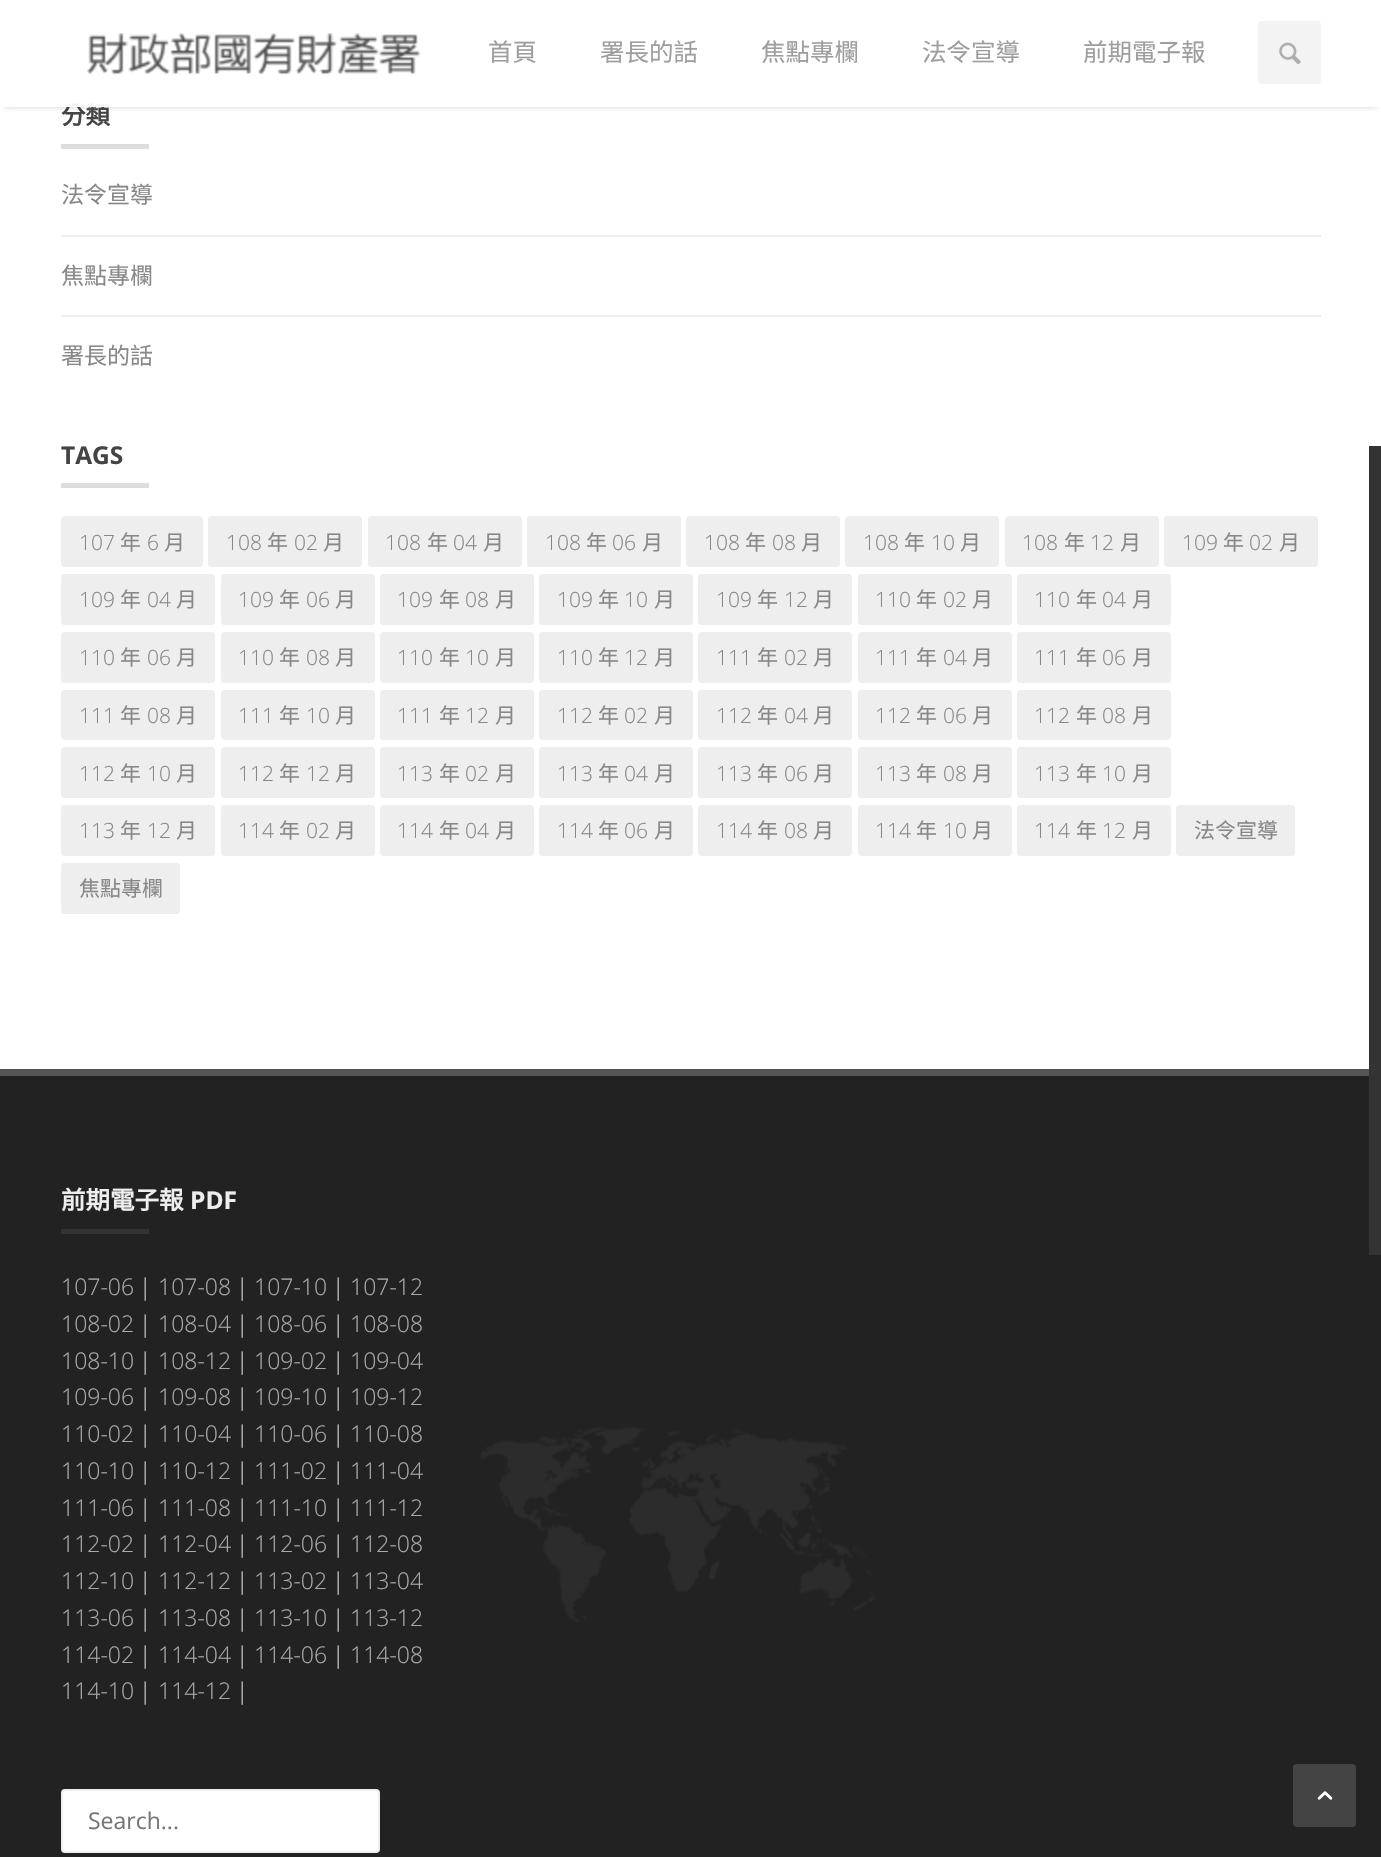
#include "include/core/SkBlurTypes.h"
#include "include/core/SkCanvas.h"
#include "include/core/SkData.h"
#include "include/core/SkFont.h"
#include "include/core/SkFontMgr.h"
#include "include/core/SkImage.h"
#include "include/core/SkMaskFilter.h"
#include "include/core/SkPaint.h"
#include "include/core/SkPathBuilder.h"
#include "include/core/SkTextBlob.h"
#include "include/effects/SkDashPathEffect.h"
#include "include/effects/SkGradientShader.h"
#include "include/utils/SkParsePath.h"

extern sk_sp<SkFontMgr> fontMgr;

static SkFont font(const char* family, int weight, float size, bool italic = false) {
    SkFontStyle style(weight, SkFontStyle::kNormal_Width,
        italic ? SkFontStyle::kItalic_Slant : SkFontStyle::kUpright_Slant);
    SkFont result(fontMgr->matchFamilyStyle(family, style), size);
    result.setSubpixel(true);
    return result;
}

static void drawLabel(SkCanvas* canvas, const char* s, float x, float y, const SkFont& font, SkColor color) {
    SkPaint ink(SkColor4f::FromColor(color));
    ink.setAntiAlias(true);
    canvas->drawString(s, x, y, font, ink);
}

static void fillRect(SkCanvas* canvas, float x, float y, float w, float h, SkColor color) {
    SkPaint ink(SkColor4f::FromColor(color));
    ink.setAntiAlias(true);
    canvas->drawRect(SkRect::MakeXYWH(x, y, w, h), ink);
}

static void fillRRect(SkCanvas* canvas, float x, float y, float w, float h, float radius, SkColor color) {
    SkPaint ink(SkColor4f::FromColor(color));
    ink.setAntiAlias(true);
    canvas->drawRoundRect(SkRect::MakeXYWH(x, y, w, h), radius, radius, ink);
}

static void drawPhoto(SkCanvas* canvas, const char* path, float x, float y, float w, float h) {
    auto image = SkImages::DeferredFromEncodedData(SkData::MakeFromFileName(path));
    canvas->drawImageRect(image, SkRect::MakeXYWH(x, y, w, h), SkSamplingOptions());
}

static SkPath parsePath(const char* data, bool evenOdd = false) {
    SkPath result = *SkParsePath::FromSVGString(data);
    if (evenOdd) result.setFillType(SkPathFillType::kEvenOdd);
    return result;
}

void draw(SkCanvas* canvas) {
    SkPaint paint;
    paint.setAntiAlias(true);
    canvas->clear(0xFFFFFFFF);
    paint.setStroke(true);
    paint.setStrokeWidth(2);
    paint.setColor(0xFFEEEEEE);
    canvas->drawRoundRect(SkRect::MakeXYWH(62, -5, 1258, 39), 3, 3, paint);
    canvas->save();
    canvas->clipPath(parsePath("M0 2H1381V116H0ZM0 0H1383V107H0Z", true), true);
    paint.setStroke(false);
    paint.setColor(0x30000000);
    paint.setMaskFilter(SkMaskFilter::MakeBlur(kNormal_SkBlurStyle, 2.5f));
    canvas->drawRect(SkRect::MakeXYWH(5, 11, 1372, 96), paint);
    paint.setMaskFilter(nullptr);
    canvas->restore();
    SkFont font1 = font("Noto Sans CJK TC", 700, 24.5f);
    drawLabel(canvas, "分類", 61, 124, font1, 0xFF444444);
    fillRect(canvas, 4, 0, 1374, 107, 0xF2FFFFFF);
    drawPhoto(canvas, "assets/img1.png", 87, 33, 334, 42);
    SkFont font2 = font("Noto Sans CJK TC", 400, 24.5f);
    drawLabel(canvas, "首頁", 488, 61, font2, 0xFF9E9E9E);
    drawLabel(canvas, "署長的話", 600, 61, font2, 0xFF9E9E9E);
    drawLabel(canvas, "焦點專欄", 761, 61, font2, 0xFF9E9E9E);
    drawLabel(canvas, "法令宣導", 922, 61, font2, 0xFF9E9E9E);
    drawLabel(canvas, "前期電子報", 1083, 61, font2, 0xFF9E9E9E);
    fillRRect(canvas, 1258, 21, 63, 63, 4, 0xFFF3F3F3);
    drawPhoto(canvas, "assets/img2.png", 1279, 42, 22, 23);
    fillRect(canvas, 61, 144, 88, 5, 0xFFDDDDDD);
    fillRect(canvas, 61, 235, 1260, 2, 0xFFEEEEEE);
    SkFont font3 = font("Noto Sans CJK TC", 400, 23);
    drawLabel(canvas, "法令宣導", 61, 203, font3, 0xFF888888);
    fillRect(canvas, 61, 315, 1260, 2, 0xFFEEEEEE);
    drawLabel(canvas, "焦點專欄", 61, 284, font3, 0xFF888888);
    drawLabel(canvas, "署長的話", 61, 364, font3, 0xFF888888);
    SkFont font4 = font("Open Sans", 700, 24.5f);
    drawLabel(canvas, "TAGS", 61, 464, font4, 0xFF444444);
    fillRect(canvas, 61, 483, 88, 5, 0xFFDDDDDD);
    fillRRect(canvas, 61, 516, 142, 51, 4, 0xFFEEEEEE);
    SkFont font5 = font("Open Sans", 300, 21);
    drawLabel(canvas, "107", 79, 550, font5, 0xFF888888);
    SkFont font6 = font("Noto Sans CJK TC", 400, 21);
    drawLabel(canvas, "年", 120, 550, font6, 0xFF888888);
    drawLabel(canvas, "6", 147, 550, font5, 0xFF888888);
    drawLabel(canvas, "月", 164, 550, font6, 0xFF888888);
    fillRRect(canvas, 208, 516, 154, 51, 4, 0xFFEEEEEE);
    drawLabel(canvas, "108", 226, 550, font5, 0xFF888888);
    drawLabel(canvas, "年", 267, 550, font6, 0xFF888888);
    drawLabel(canvas, "02", 294, 550, font5, 0xFF888888);
    drawLabel(canvas, "月", 323, 550, font6, 0xFF888888);
    fillRRect(canvas, 368, 516, 154, 51, 4, 0xFFEEEEEE);
    drawLabel(canvas, "108", 385, 550, font5, 0xFF888888);
    drawLabel(canvas, "年", 427, 550, font6, 0xFF888888);
    drawLabel(canvas, "04", 453, 550, font5, 0xFF888888);
    drawLabel(canvas, "月", 483, 550, font6, 0xFF888888);
    fillRRect(canvas, 527, 516, 154, 51, 4, 0xFFEEEEEE);
    drawLabel(canvas, "108", 545, 550, font5, 0xFF888888);
    drawLabel(canvas, "年", 586, 550, font6, 0xFF888888);
    drawLabel(canvas, "06", 612, 550, font5, 0xFF888888);
    drawLabel(canvas, "月", 642, 550, font6, 0xFF888888);
    fillRRect(canvas, 686, 516, 154, 51, 4, 0xFFEEEEEE);
    drawLabel(canvas, "108", 704, 550, font5, 0xFF888888);
    drawLabel(canvas, "年", 745, 550, font6, 0xFF888888);
    drawLabel(canvas, "08", 772, 550, font5, 0xFF888888);
    drawLabel(canvas, "月", 801, 550, font6, 0xFF888888);
    fillRRect(canvas, 845, 516, 154, 51, 4, 0xFFEEEEEE);
    drawLabel(canvas, "108", 863, 550, font5, 0xFF888888);
    drawLabel(canvas, "年", 904, 550, font6, 0xFF888888);
    drawLabel(canvas, "10", 931, 550, font5, 0xFF888888);
    drawLabel(canvas, "月", 960, 550, font6, 0xFF888888);
    fillRRect(canvas, 1005, 516, 154, 51, 4, 0xFFEEEEEE);
    drawLabel(canvas, "108", 1022, 550, font5, 0xFF888888);
    drawLabel(canvas, "年", 1064, 550, font6, 0xFF888888);
    drawLabel(canvas, "12", 1090, 550, font5, 0xFF888888);
    drawLabel(canvas, "月", 1120, 550, font6, 0xFF888888);
    fillRRect(canvas, 1164, 516, 154, 51, 4, 0xFFEEEEEE);
    drawLabel(canvas, "109", 1182, 550, font5, 0xFF888888);
    drawLabel(canvas, "年", 1223, 550, font6, 0xFF888888);
    drawLabel(canvas, "02", 1249, 550, font5, 0xFF888888);
    drawLabel(canvas, "月", 1279, 550, font6, 0xFF888888);
    fillRRect(canvas, 61, 574, 154, 51, 4, 0xFFEEEEEE);
    drawLabel(canvas, "109", 79, 607, font5, 0xFF888888);
    drawLabel(canvas, "年", 120, 607, font6, 0xFF888888);
    drawLabel(canvas, "04", 147, 607, font5, 0xFF888888);
    drawLabel(canvas, "月", 176, 607, font6, 0xFF888888);
    fillRRect(canvas, 221, 574, 154, 51, 4, 0xFFEEEEEE);
    drawLabel(canvas, "109", 238, 607, font5, 0xFF888888);
    drawLabel(canvas, "年", 279, 607, font6, 0xFF888888);
    drawLabel(canvas, "06", 306, 607, font5, 0xFF888888);
    drawLabel(canvas, "月", 335, 607, font6, 0xFF888888);
    fillRRect(canvas, 380, 574, 154, 51, 4, 0xFFEEEEEE);
    drawLabel(canvas, "109", 397, 607, font5, 0xFF888888);
    drawLabel(canvas, "年", 439, 607, font6, 0xFF888888);
    drawLabel(canvas, "08", 465, 607, font5, 0xFF888888);
    drawLabel(canvas, "月", 495, 607, font6, 0xFF888888);
    fillRRect(canvas, 539, 574, 154, 51, 4, 0xFFEEEEEE);
    drawLabel(canvas, "109", 557, 607, font5, 0xFF888888);
    drawLabel(canvas, "年", 598, 607, font6, 0xFF888888);
    drawLabel(canvas, "10", 624, 607, font5, 0xFF888888);
    drawLabel(canvas, "月", 654, 607, font6, 0xFF888888);
    fillRRect(canvas, 698, 574, 154, 51, 4, 0xFFEEEEEE);
    drawLabel(canvas, "109", 716, 607, font5, 0xFF888888);
    drawLabel(canvas, "年", 757, 607, font6, 0xFF888888);
    drawLabel(canvas, "12", 784, 607, font5, 0xFF888888);
    drawLabel(canvas, "月", 813, 607, font6, 0xFF888888);
    fillRRect(canvas, 858, 574, 154, 51, 4, 0xFFEEEEEE);
    drawLabel(canvas, "110", 875, 607, font5, 0xFF888888);
    drawLabel(canvas, "年", 916, 607, font6, 0xFF888888);
    drawLabel(canvas, "02", 943, 607, font5, 0xFF888888);
    drawLabel(canvas, "月", 972, 607, font6, 0xFF888888);
    fillRRect(canvas, 1017, 574, 154, 51, 4, 0xFFEEEEEE);
    drawLabel(canvas, "110", 1034, 607, font5, 0xFF888888);
    drawLabel(canvas, "年", 1076, 607, font6, 0xFF888888);
    drawLabel(canvas, "04", 1102, 607, font5, 0xFF888888);
    drawLabel(canvas, "月", 1132, 607, font6, 0xFF888888);
    fillRRect(canvas, 61, 632, 154, 51, 4, 0xFFEEEEEE);
    drawLabel(canvas, "110", 79, 665, font5, 0xFF888888);
    drawLabel(canvas, "年", 120, 665, font6, 0xFF888888);
    drawLabel(canvas, "06", 147, 665, font5, 0xFF888888);
    drawLabel(canvas, "月", 176, 665, font6, 0xFF888888);
    fillRRect(canvas, 221, 632, 154, 51, 4, 0xFFEEEEEE);
    drawLabel(canvas, "110", 238, 665, font5, 0xFF888888);
    drawLabel(canvas, "年", 279, 665, font6, 0xFF888888);
    drawLabel(canvas, "08", 306, 665, font5, 0xFF888888);
    drawLabel(canvas, "月", 335, 665, font6, 0xFF888888);
    fillRRect(canvas, 380, 632, 154, 51, 4, 0xFFEEEEEE);
    drawLabel(canvas, "110", 397, 665, font5, 0xFF888888);
    drawLabel(canvas, "年", 439, 665, font6, 0xFF888888);
    drawLabel(canvas, "10", 465, 665, font5, 0xFF888888);
    drawLabel(canvas, "月", 495, 665, font6, 0xFF888888);
    fillRRect(canvas, 539, 632, 154, 51, 4, 0xFFEEEEEE);
    drawLabel(canvas, "110", 557, 665, font5, 0xFF888888);
    drawLabel(canvas, "年", 598, 665, font6, 0xFF888888);
    drawLabel(canvas, "12", 624, 665, font5, 0xFF888888);
    drawLabel(canvas, "月", 654, 665, font6, 0xFF888888);
    fillRRect(canvas, 698, 632, 154, 51, 4, 0xFFEEEEEE);
    drawLabel(canvas, "111", 716, 665, font5, 0xFF888888);
    drawLabel(canvas, "年", 757, 665, font6, 0xFF888888);
    drawLabel(canvas, "02", 784, 665, font5, 0xFF888888);
    drawLabel(canvas, "月", 813, 665, font6, 0xFF888888);
    fillRRect(canvas, 858, 632, 154, 51, 4, 0xFFEEEEEE);
    drawLabel(canvas, "111", 875, 665, font5, 0xFF888888);
    drawLabel(canvas, "年", 916, 665, font6, 0xFF888888);
    drawLabel(canvas, "04", 943, 665, font5, 0xFF888888);
    drawLabel(canvas, "月", 972, 665, font6, 0xFF888888);
    fillRRect(canvas, 1017, 632, 154, 51, 4, 0xFFEEEEEE);
    drawLabel(canvas, "111", 1034, 665, font5, 0xFF888888);
    drawLabel(canvas, "年", 1076, 665, font6, 0xFF888888);
    drawLabel(canvas, "06", 1102, 665, font5, 0xFF888888);
    drawLabel(canvas, "月", 1132, 665, font6, 0xFF888888);
    fillRRect(canvas, 61, 690, 154, 50, 4, 0xFFEEEEEE);
    drawLabel(canvas, "111", 79, 723, font5, 0xFF888888);
    drawLabel(canvas, "年", 120, 723, font6, 0xFF888888);
    drawLabel(canvas, "08", 147, 723, font5, 0xFF888888);
    drawLabel(canvas, "月", 176, 723, font6, 0xFF888888);
    fillRRect(canvas, 221, 690, 154, 50, 4, 0xFFEEEEEE);
    drawLabel(canvas, "111", 238, 723, font5, 0xFF888888);
    drawLabel(canvas, "年", 279, 723, font6, 0xFF888888);
    drawLabel(canvas, "10", 306, 723, font5, 0xFF888888);
    drawLabel(canvas, "月", 335, 723, font6, 0xFF888888);
    fillRRect(canvas, 380, 690, 154, 50, 4, 0xFFEEEEEE);
    drawLabel(canvas, "111", 397, 723, font5, 0xFF888888);
    drawLabel(canvas, "年", 439, 723, font6, 0xFF888888);
    drawLabel(canvas, "12", 465, 723, font5, 0xFF888888);
    drawLabel(canvas, "月", 495, 723, font6, 0xFF888888);
    fillRRect(canvas, 539, 690, 154, 50, 4, 0xFFEEEEEE);
    drawLabel(canvas, "112", 557, 723, font5, 0xFF888888);
    drawLabel(canvas, "年", 598, 723, font6, 0xFF888888);
    drawLabel(canvas, "02", 624, 723, font5, 0xFF888888);
    drawLabel(canvas, "月", 654, 723, font6, 0xFF888888);
    fillRRect(canvas, 698, 690, 154, 50, 4, 0xFFEEEEEE);
    drawLabel(canvas, "112", 716, 723, font5, 0xFF888888);
    drawLabel(canvas, "年", 757, 723, font6, 0xFF888888);
    drawLabel(canvas, "04", 784, 723, font5, 0xFF888888);
    drawLabel(canvas, "月", 813, 723, font6, 0xFF888888);
    fillRRect(canvas, 858, 690, 154, 50, 4, 0xFFEEEEEE);
    drawLabel(canvas, "112", 875, 723, font5, 0xFF888888);
    drawLabel(canvas, "年", 916, 723, font6, 0xFF888888);
    drawLabel(canvas, "06", 943, 723, font5, 0xFF888888);
    drawLabel(canvas, "月", 972, 723, font6, 0xFF888888);
    fillRRect(canvas, 1017, 690, 154, 50, 4, 0xFFEEEEEE);
    drawLabel(canvas, "112", 1034, 723, font5, 0xFF888888);
    drawLabel(canvas, "年", 1076, 723, font6, 0xFF888888);
    drawLabel(canvas, "08", 1102, 723, font5, 0xFF888888);
    drawLabel(canvas, "月", 1132, 723, font6, 0xFF888888);
    fillRRect(canvas, 61, 747, 154, 51, 4, 0xFFEEEEEE);
    drawLabel(canvas, "112", 79, 781, font5, 0xFF888888);
    drawLabel(canvas, "年", 120, 781, font6, 0xFF888888);
    drawLabel(canvas, "10", 147, 781, font5, 0xFF888888);
    drawLabel(canvas, "月", 176, 781, font6, 0xFF888888);
    fillRRect(canvas, 221, 747, 154, 51, 4, 0xFFEEEEEE);
    drawLabel(canvas, "112", 238, 781, font5, 0xFF888888);
    drawLabel(canvas, "年", 279, 781, font6, 0xFF888888);
    drawLabel(canvas, "12", 306, 781, font5, 0xFF888888);
    drawLabel(canvas, "月", 335, 781, font6, 0xFF888888);
    fillRRect(canvas, 380, 747, 154, 51, 4, 0xFFEEEEEE);
    drawLabel(canvas, "113", 397, 781, font5, 0xFF888888);
    drawLabel(canvas, "年", 439, 781, font6, 0xFF888888);
    drawLabel(canvas, "02", 465, 781, font5, 0xFF888888);
    drawLabel(canvas, "月", 495, 781, font6, 0xFF888888);
    fillRRect(canvas, 539, 747, 154, 51, 4, 0xFFEEEEEE);
    drawLabel(canvas, "113", 557, 781, font5, 0xFF888888);
    drawLabel(canvas, "年", 598, 781, font6, 0xFF888888);
    drawLabel(canvas, "04", 624, 781, font5, 0xFF888888);
    drawLabel(canvas, "月", 654, 781, font6, 0xFF888888);
    fillRRect(canvas, 698, 747, 154, 51, 4, 0xFFEEEEEE);
    drawLabel(canvas, "113", 716, 781, font5, 0xFF888888);
    drawLabel(canvas, "年", 757, 781, font6, 0xFF888888);
    drawLabel(canvas, "06", 784, 781, font5, 0xFF888888);
    drawLabel(canvas, "月", 813, 781, font6, 0xFF888888);
    fillRRect(canvas, 858, 747, 154, 51, 4, 0xFFEEEEEE);
    drawLabel(canvas, "113", 875, 781, font5, 0xFF888888);
    drawLabel(canvas, "年", 916, 781, font6, 0xFF888888);
    drawLabel(canvas, "08", 943, 781, font5, 0xFF888888);
    drawLabel(canvas, "月", 972, 781, font6, 0xFF888888);
    fillRRect(canvas, 1017, 747, 154, 51, 4, 0xFFEEEEEE);
    drawLabel(canvas, "113", 1034, 781, font5, 0xFF888888);
    drawLabel(canvas, "年", 1076, 781, font6, 0xFF888888);
    drawLabel(canvas, "10", 1102, 781, font5, 0xFF888888);
    drawLabel(canvas, "月", 1132, 781, font6, 0xFF888888);
    fillRRect(canvas, 61, 805, 154, 51, 4, 0xFFEEEEEE);
    drawLabel(canvas, "113", 79, 838, font5, 0xFF888888);
    drawLabel(canvas, "年", 120, 838, font6, 0xFF888888);
    drawLabel(canvas, "12", 147, 838, font5, 0xFF888888);
    drawLabel(canvas, "月", 176, 838, font6, 0xFF888888);
    fillRRect(canvas, 221, 805, 154, 51, 4, 0xFFEEEEEE);
    drawLabel(canvas, "114", 238, 838, font5, 0xFF888888);
    drawLabel(canvas, "年", 279, 838, font6, 0xFF888888);
    drawLabel(canvas, "02", 306, 838, font5, 0xFF888888);
    drawLabel(canvas, "月", 335, 838, font6, 0xFF888888);
    fillRRect(canvas, 380, 805, 154, 51, 4, 0xFFEEEEEE);
    drawLabel(canvas, "114", 397, 838, font5, 0xFF888888);
    drawLabel(canvas, "年", 439, 838, font6, 0xFF888888);
    drawLabel(canvas, "04", 465, 838, font5, 0xFF888888);
    drawLabel(canvas, "月", 495, 838, font6, 0xFF888888);
    fillRRect(canvas, 539, 805, 154, 51, 4, 0xFFEEEEEE);
    drawLabel(canvas, "114", 557, 838, font5, 0xFF888888);
    drawLabel(canvas, "年", 598, 838, font6, 0xFF888888);
    drawLabel(canvas, "06", 624, 838, font5, 0xFF888888);
    drawLabel(canvas, "月", 654, 838, font6, 0xFF888888);
    fillRRect(canvas, 698, 805, 154, 51, 4, 0xFFEEEEEE);
    drawLabel(canvas, "114", 716, 838, font5, 0xFF888888);
    drawLabel(canvas, "年", 757, 838, font6, 0xFF888888);
    drawLabel(canvas, "08", 784, 838, font5, 0xFF888888);
    drawLabel(canvas, "月", 813, 838, font6, 0xFF888888);
    fillRRect(canvas, 858, 805, 154, 51, 4, 0xFFEEEEEE);
    drawLabel(canvas, "114", 875, 838, font5, 0xFF888888);
    drawLabel(canvas, "年", 916, 838, font6, 0xFF888888);
    drawLabel(canvas, "10", 943, 838, font5, 0xFF888888);
    drawLabel(canvas, "月", 972, 838, font6, 0xFF888888);
    fillRRect(canvas, 1017, 805, 154, 51, 4, 0xFFEEEEEE);
    drawLabel(canvas, "114", 1034, 838, font5, 0xFF888888);
    drawLabel(canvas, "年", 1076, 838, font6, 0xFF888888);
    drawLabel(canvas, "12", 1102, 838, font5, 0xFF888888);
    drawLabel(canvas, "月", 1132, 838, font6, 0xFF888888);
    fillRRect(canvas, 1176, 805, 119, 51, 4, 0xFFEEEEEE);
    drawLabel(canvas, "法令宣導", 1194, 838, font6, 0xFF888888);
    fillRRect(canvas, 61, 863, 119, 51, 4, 0xFFEEEEEE);
    drawLabel(canvas, "焦點專欄", 79, 896, font6, 0xFF888888);
    fillRect(canvas, 0, 1076, 1381, 781, 0xFF222222);
    fillRect(canvas, 0, 1069, 1369, 7, 0xFF555555);
    drawPhoto(canvas, "assets/img3.png", 480, 1427, 409, 195);
    drawLabel(canvas, "前期電子報", 61, 1209, font1, 0xFFEEEEEE);
    drawLabel(canvas, "PDF", 190, 1209, font4, 0xFFEEEEEE);
    fillRect(canvas, 61, 1229, 88, 5, 0xFF333333);
    SkFont font7 = font("Open Sans", 300, 23);
    drawLabel(canvas, "107-06", 61, 1295, font7, 0xFFAAAAAA);
    drawLabel(canvas, "|", 139, 1295, font7, 0xFFCCCCCC);
    drawLabel(canvas, "107-08", 158, 1295, font7, 0xFFAAAAAA);
    drawLabel(canvas, "|", 236, 1295, font7, 0xFFCCCCCC);
    drawLabel(canvas, "107-10", 254, 1295, font7, 0xFFAAAAAA);
    drawLabel(canvas, "|", 332, 1295, font7, 0xFFCCCCCC);
    drawLabel(canvas, "107-12", 350, 1295, font7, 0xFFAAAAAA);
    drawLabel(canvas, "108-02", 61, 1332, font7, 0xFFAAAAAA);
    drawLabel(canvas, "|", 139, 1332, font7, 0xFFCCCCCC);
    drawLabel(canvas, "108-04", 158, 1332, font7, 0xFFAAAAAA);
    drawLabel(canvas, "|", 236, 1332, font7, 0xFFCCCCCC);
    drawLabel(canvas, "108-06", 254, 1332, font7, 0xFFAAAAAA);
    drawLabel(canvas, "|", 332, 1332, font7, 0xFFCCCCCC);
    drawLabel(canvas, "108-08", 350, 1332, font7, 0xFFAAAAAA);
    drawLabel(canvas, "108-10", 61, 1369, font7, 0xFFAAAAAA);
    drawLabel(canvas, "|", 139, 1369, font7, 0xFFCCCCCC);
    drawLabel(canvas, "108-12", 158, 1369, font7, 0xFFAAAAAA);
    drawLabel(canvas, "|", 236, 1369, font7, 0xFFCCCCCC);
    drawLabel(canvas, "109-02", 254, 1369, font7, 0xFFAAAAAA);
    drawLabel(canvas, "|", 332, 1369, font7, 0xFFCCCCCC);
    drawLabel(canvas, "109-04", 350, 1369, font7, 0xFFAAAAAA);
    drawLabel(canvas, "109-06", 61, 1405, font7, 0xFFAAAAAA);
    drawLabel(canvas, "|", 139, 1405, font7, 0xFFCCCCCC);
    drawLabel(canvas, "109-08", 158, 1405, font7, 0xFFAAAAAA);
    drawLabel(canvas, "|", 236, 1405, font7, 0xFFCCCCCC);
    drawLabel(canvas, "109-10", 254, 1405, font7, 0xFFAAAAAA);
    drawLabel(canvas, "|", 332, 1405, font7, 0xFFCCCCCC);
    drawLabel(canvas, "109-12", 350, 1405, font7, 0xFFAAAAAA);
    drawLabel(canvas, "110-02", 61, 1442, font7, 0xFFAAAAAA);
    drawLabel(canvas, "|", 139, 1442, font7, 0xFFCCCCCC);
    drawLabel(canvas, "110-04", 158, 1442, font7, 0xFFAAAAAA);
    drawLabel(canvas, "|", 236, 1442, font7, 0xFFCCCCCC);
    drawLabel(canvas, "110-06", 254, 1442, font7, 0xFFAAAAAA);
    drawLabel(canvas, "|", 332, 1442, font7, 0xFFCCCCCC);
    drawLabel(canvas, "110-08", 350, 1442, font7, 0xFFAAAAAA);
    drawLabel(canvas, "110-10", 61, 1479, font7, 0xFFAAAAAA);
    drawLabel(canvas, "|", 139, 1479, font7, 0xFFCCCCCC);
    drawLabel(canvas, "110-12", 158, 1479, font7, 0xFFAAAAAA);
    drawLabel(canvas, "|", 236, 1479, font7, 0xFFCCCCCC);
    drawLabel(canvas, "111-02", 254, 1479, font7, 0xFFAAAAAA);
    drawLabel(canvas, "|", 332, 1479, font7, 0xFFCCCCCC);
    drawLabel(canvas, "111-04", 350, 1479, font7, 0xFFAAAAAA);
    drawLabel(canvas, "111-06", 61, 1516, font7, 0xFFAAAAAA);
    drawLabel(canvas, "|", 139, 1516, font7, 0xFFCCCCCC);
    drawLabel(canvas, "111-08", 158, 1516, font7, 0xFFAAAAAA);
    drawLabel(canvas, "|", 236, 1516, font7, 0xFFCCCCCC);
    drawLabel(canvas, "111-10", 254, 1516, font7, 0xFFAAAAAA);
    drawLabel(canvas, "|", 332, 1516, font7, 0xFFCCCCCC);
    drawLabel(canvas, "111-12", 350, 1516, font7, 0xFFAAAAAA);
    drawLabel(canvas, "112-02", 61, 1552, font7, 0xFFAAAAAA);
    drawLabel(canvas, "|", 139, 1552, font7, 0xFFCCCCCC);
    drawLabel(canvas, "112-04", 158, 1552, font7, 0xFFAAAAAA);
    drawLabel(canvas, "|", 236, 1552, font7, 0xFFCCCCCC);
    drawLabel(canvas, "112-06", 254, 1552, font7, 0xFFAAAAAA);
    drawLabel(canvas, "|", 332, 1552, font7, 0xFFCCCCCC);
    drawLabel(canvas, "112-08", 350, 1552, font7, 0xFFAAAAAA);
    drawLabel(canvas, "112-10", 61, 1589, font7, 0xFFAAAAAA);
    drawLabel(canvas, "|", 139, 1589, font7, 0xFFCCCCCC);
    drawLabel(canvas, "112-12", 158, 1589, font7, 0xFFAAAAAA);
    drawLabel(canvas, "|", 236, 1589, font7, 0xFFCCCCCC);
    drawLabel(canvas, "113-02", 254, 1589, font7, 0xFFAAAAAA);
    drawLabel(canvas, "|", 332, 1589, font7, 0xFFCCCCCC);
    drawLabel(canvas, "113-04", 350, 1589, font7, 0xFFAAAAAA);
    drawLabel(canvas, "113-06", 61, 1626, font7, 0xFFAAAAAA);
    drawLabel(canvas, "|", 139, 1626, font7, 0xFFCCCCCC);
    drawLabel(canvas, "113-08", 158, 1626, font7, 0xFFAAAAAA);
    drawLabel(canvas, "|", 236, 1626, font7, 0xFFCCCCCC);
    drawLabel(canvas, "113-10", 254, 1626, font7, 0xFFAAAAAA);
    drawLabel(canvas, "|", 332, 1626, font7, 0xFFCCCCCC);
    drawLabel(canvas, "113-12", 350, 1626, font7, 0xFFAAAAAA);
    drawLabel(canvas, "114-02", 61, 1663, font7, 0xFFAAAAAA);
    drawLabel(canvas, "|", 139, 1663, font7, 0xFFCCCCCC);
    drawLabel(canvas, "114-04", 158, 1663, font7, 0xFFAAAAAA);
    drawLabel(canvas, "|", 236, 1663, font7, 0xFFCCCCCC);
    drawLabel(canvas, "114-06", 254, 1663, font7, 0xFFAAAAAA);
    drawLabel(canvas, "|", 332, 1663, font7, 0xFFCCCCCC);
    drawLabel(canvas, "114-08", 350, 1663, font7, 0xFFAAAAAA);
    drawLabel(canvas, "114-10", 61, 1699, font7, 0xFFAAAAAA);
    drawLabel(canvas, "|", 139, 1699, font7, 0xFFCCCCCC);
    drawLabel(canvas, "114-12", 158, 1699, font7, 0xFFAAAAAA);
    drawLabel(canvas, "|", 236, 1699, font7, 0xFFCCCCCC);
    paint.setColor(0xFFFFFFFF);
    canvas->drawRoundRect(SkRect::MakeXYWH(62, 1790, 317, 62), 3, 3, paint);
    paint.setStroke(true);
    paint.setColor(0xFFEEEEEE);
    canvas->drawRoundRect(SkRect::MakeXYWH(62, 1790, 317, 62), 3, 3, paint);
    SkFont font8 = font("Open Sans", 400, 23);
    drawLabel(canvas, "Search...", 88, 1829, font8, 0xFF757575);
    fillRect(canvas, 1369, 446, 12, 809, 0xFF333333);
    fillRRect(canvas, 1293, 1764, 63, 63, 4, 0xFF444444);
    drawPhoto(canvas, "assets/img4.png", 1317, 1791, 16, 9);
}
